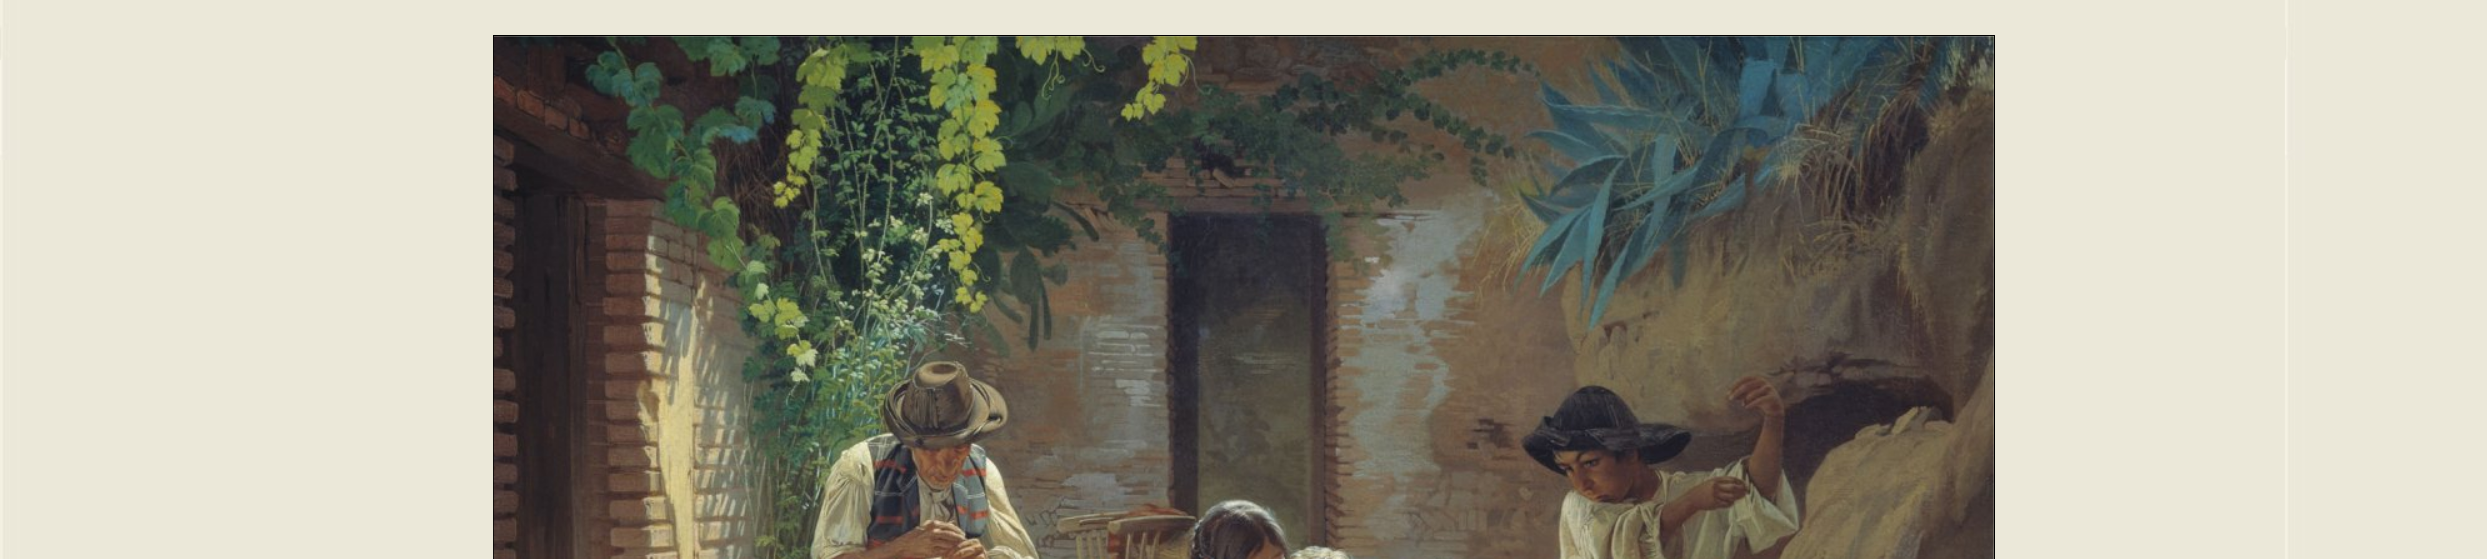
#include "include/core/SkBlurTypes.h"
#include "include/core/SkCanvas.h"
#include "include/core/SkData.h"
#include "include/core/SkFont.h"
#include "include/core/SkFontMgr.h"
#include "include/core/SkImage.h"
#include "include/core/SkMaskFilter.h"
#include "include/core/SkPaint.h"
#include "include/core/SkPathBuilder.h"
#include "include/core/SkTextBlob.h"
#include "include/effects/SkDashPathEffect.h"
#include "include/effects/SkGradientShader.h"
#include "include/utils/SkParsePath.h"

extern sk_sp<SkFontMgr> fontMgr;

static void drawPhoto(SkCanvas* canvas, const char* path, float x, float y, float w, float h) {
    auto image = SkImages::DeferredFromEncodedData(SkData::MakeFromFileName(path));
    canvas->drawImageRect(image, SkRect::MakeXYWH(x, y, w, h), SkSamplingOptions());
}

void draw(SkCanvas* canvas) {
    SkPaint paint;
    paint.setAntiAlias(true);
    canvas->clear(0xFFFFFFFF);
    drawPhoto(canvas, "assets/img1.png", 0, 0, 2487, 559);
    paint.setStroke(true);
    paint.setStrokeWidth(1);
    paint.setColor(0xFF000000);
    canvas->drawRect(SkRect::MakeXYWH(493.5f, 35.5f, 1501, 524), paint);
    drawPhoto(canvas, "assets/img2.png", 493, 36, 1501, 523);
}
